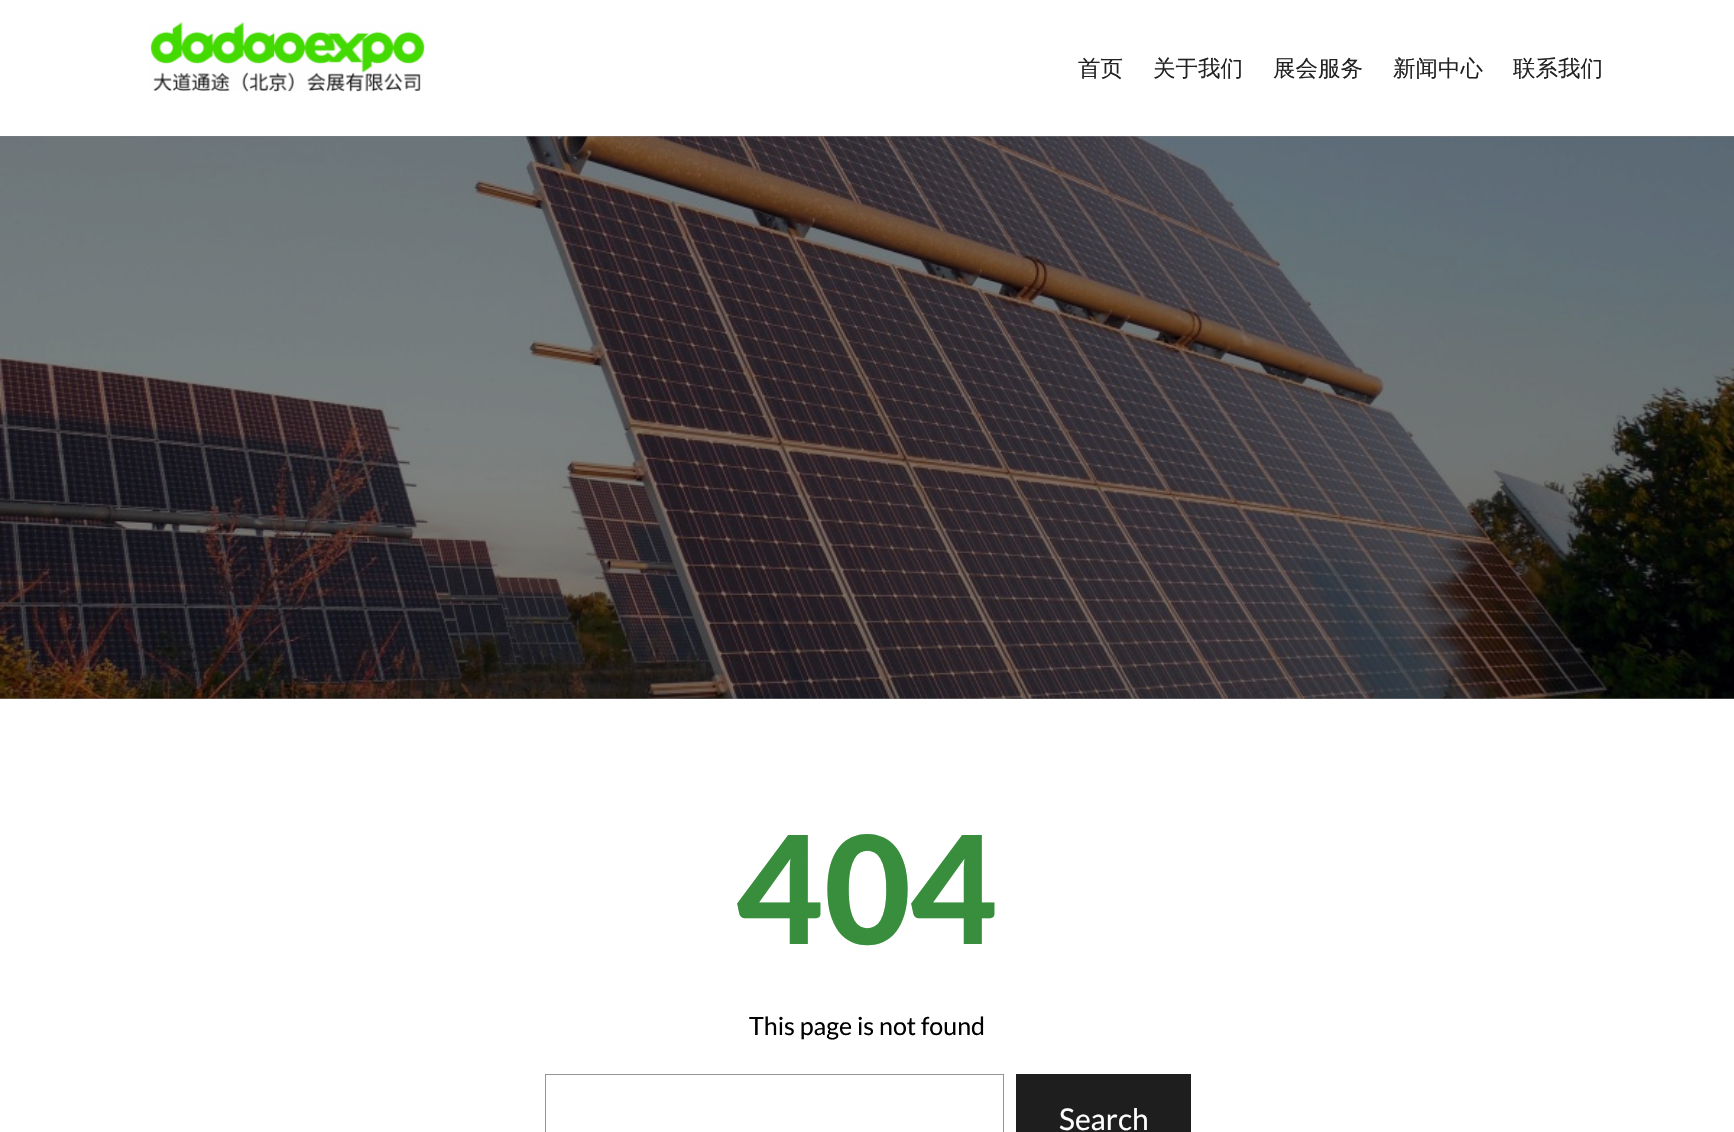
#include "include/core/SkBlurTypes.h"
#include "include/core/SkCanvas.h"
#include "include/core/SkData.h"
#include "include/core/SkFont.h"
#include "include/core/SkFontMgr.h"
#include "include/core/SkImage.h"
#include "include/core/SkMaskFilter.h"
#include "include/core/SkPaint.h"
#include "include/core/SkPathBuilder.h"
#include "include/core/SkTextBlob.h"
#include "include/effects/SkDashPathEffect.h"
#include "include/effects/SkGradientShader.h"
#include "include/utils/SkParsePath.h"

extern sk_sp<SkFontMgr> fontMgr;

static SkFont font(const char* family, int weight, float size, bool italic = false) {
    SkFontStyle style(weight, SkFontStyle::kNormal_Width,
        italic ? SkFontStyle::kItalic_Slant : SkFontStyle::kUpright_Slant);
    SkFont result(fontMgr->matchFamilyStyle(family, style), size);
    result.setSubpixel(true);
    return result;
}

static void drawLabel(SkCanvas* canvas, const char* s, float x, float y, const SkFont& font, SkColor color) {
    SkPaint ink(SkColor4f::FromColor(color));
    ink.setAntiAlias(true);
    canvas->drawString(s, x, y, font, ink);
}

static void fillRect(SkCanvas* canvas, float x, float y, float w, float h, SkColor color) {
    SkPaint ink(SkColor4f::FromColor(color));
    ink.setAntiAlias(true);
    canvas->drawRect(SkRect::MakeXYWH(x, y, w, h), ink);
}

static void drawPhoto(SkCanvas* canvas, const char* path, float x, float y, float w, float h) {
    auto image = SkImages::DeferredFromEncodedData(SkData::MakeFromFileName(path));
    canvas->drawImageRect(image, SkRect::MakeXYWH(x, y, w, h), SkSamplingOptions());
}

void draw(SkCanvas* canvas) {
    SkPaint paint;
    paint.setAntiAlias(true);
    canvas->clear(0xFFFFFFFF);
    fillRect(canvas, 0, 136, 1734, 563, 0xFF808080);
    drawPhoto(canvas, "assets/img1.png", 150, 22, 275, 70);
    SkFont font1 = font("WenQuanYi Zen Hei", 500, 22.5f);
    drawLabel(canvas, "首页", 1078, 76, font1, 0xFF222222);
    drawLabel(canvas, "关于我们", 1153, 76, font1, 0xFF222222);
    drawLabel(canvas, "展会服务", 1273, 76, font1, 0xFF222222);
    drawLabel(canvas, "新闻中心", 1393, 76, font1, 0xFF222222);
    drawLabel(canvas, "联系我们", 1513, 76, font1, 0xFF222222);
    drawPhoto(canvas, "assets/img2.png", 0, 136, 1734, 563);
    SkFont font2 = font("Lato", 900, 150);
    drawLabel(canvas, "404", 737, 944, font2, 0xFF388E3C);
    SkFont font3 = font("Lato", 400, 25);
    drawLabel(canvas, "This page is not found", 749, 1035, font3, 0xFF000000);
    paint.setStroke(true);
    paint.setStrokeWidth(1);
    paint.setColor(0xFF949494);
    canvas->drawRect(SkRect::MakeXYWH(545.5f, 1074.5f, 458, 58), paint);
    fillRect(canvas, 1016, 1074, 175, 58, 0xFF1E1E1E);
    SkFont font4 = font("Lato", 400, 30);
    drawLabel(canvas, "Search", 1059, 1130, font4, 0xFFFFFFFF);
}
